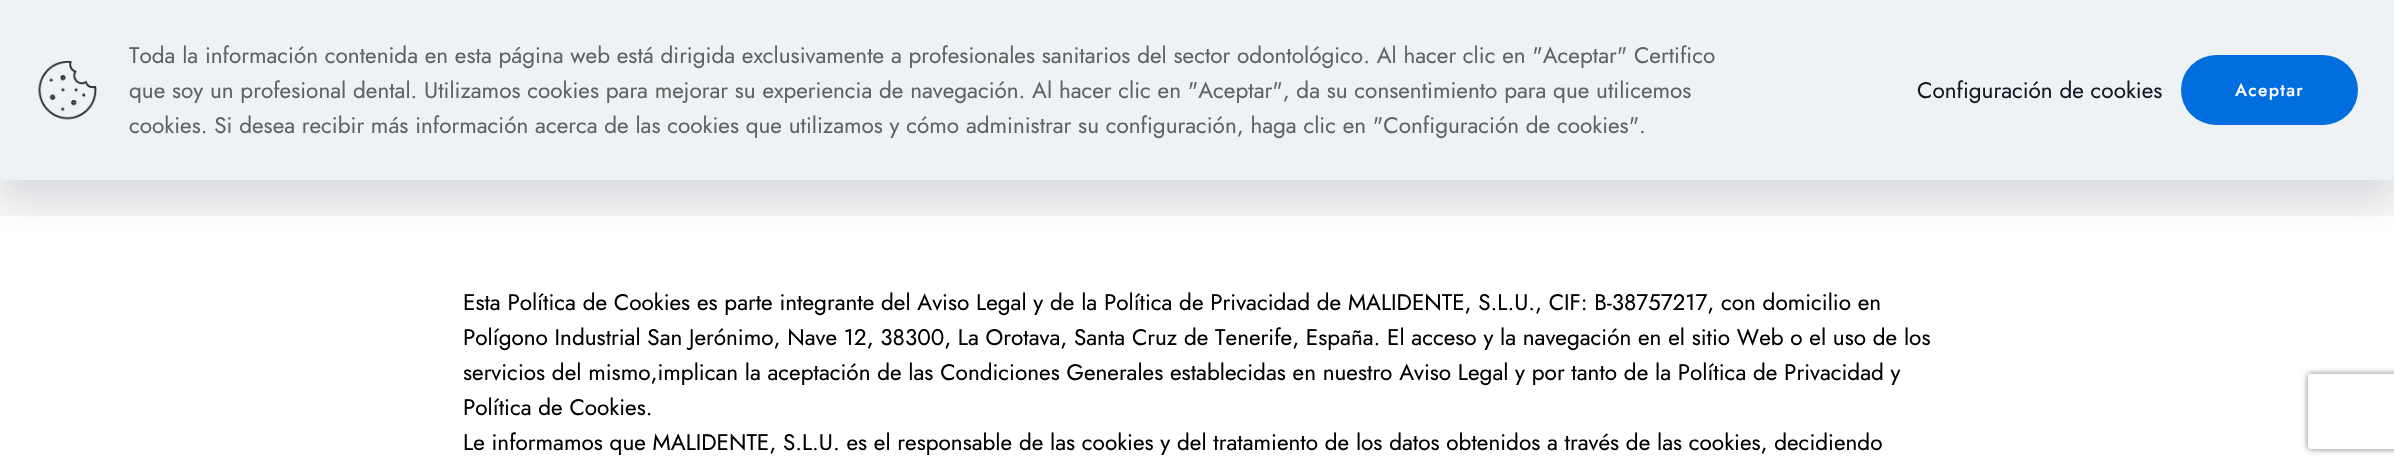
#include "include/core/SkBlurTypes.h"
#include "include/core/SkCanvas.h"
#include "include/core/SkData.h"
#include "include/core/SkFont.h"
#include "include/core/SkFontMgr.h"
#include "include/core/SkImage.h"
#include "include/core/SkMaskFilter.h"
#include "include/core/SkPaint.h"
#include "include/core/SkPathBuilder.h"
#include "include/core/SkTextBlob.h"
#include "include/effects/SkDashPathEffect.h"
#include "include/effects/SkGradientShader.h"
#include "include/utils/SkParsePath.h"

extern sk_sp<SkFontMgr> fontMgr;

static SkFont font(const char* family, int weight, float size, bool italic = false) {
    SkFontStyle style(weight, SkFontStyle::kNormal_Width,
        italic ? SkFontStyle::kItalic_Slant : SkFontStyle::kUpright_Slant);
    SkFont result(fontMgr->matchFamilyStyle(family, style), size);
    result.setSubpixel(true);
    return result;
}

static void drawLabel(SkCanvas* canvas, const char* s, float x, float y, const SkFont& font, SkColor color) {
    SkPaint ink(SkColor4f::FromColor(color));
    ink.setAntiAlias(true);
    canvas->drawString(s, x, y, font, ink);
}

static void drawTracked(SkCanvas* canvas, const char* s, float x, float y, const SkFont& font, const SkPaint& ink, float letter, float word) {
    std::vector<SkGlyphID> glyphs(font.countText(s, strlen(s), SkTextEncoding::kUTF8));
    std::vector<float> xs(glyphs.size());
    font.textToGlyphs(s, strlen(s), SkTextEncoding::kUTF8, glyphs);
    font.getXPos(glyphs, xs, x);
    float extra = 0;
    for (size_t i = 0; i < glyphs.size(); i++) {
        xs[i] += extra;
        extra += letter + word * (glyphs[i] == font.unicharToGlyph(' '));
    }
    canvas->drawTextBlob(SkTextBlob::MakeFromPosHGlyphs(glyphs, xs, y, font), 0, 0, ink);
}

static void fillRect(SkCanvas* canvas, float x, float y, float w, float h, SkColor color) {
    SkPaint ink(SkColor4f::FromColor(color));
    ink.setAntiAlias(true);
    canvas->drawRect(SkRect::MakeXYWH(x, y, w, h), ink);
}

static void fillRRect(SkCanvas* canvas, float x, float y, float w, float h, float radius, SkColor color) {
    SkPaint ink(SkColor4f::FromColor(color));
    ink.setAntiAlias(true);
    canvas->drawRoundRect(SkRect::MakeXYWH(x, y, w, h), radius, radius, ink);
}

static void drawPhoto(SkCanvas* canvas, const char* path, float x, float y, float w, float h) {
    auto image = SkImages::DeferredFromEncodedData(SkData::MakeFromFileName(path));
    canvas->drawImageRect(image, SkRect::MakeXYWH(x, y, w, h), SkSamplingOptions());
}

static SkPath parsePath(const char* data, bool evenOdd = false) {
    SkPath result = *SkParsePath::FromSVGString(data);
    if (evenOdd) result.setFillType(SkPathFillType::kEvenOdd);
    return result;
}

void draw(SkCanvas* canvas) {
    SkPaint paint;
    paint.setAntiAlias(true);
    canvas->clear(0xFFFFFFFF);
    fillRect(canvas, 0, 0, 2394, 216, 0xFFF7F7F7);
    paint.setColor(0x21010727);
    paint.setMaskFilter(SkMaskFilter::MakeBlur(kNormal_SkBlurStyle, 19));
    canvas->drawRoundRect(SkRect::MakeXYWH(0, 19, 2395, 180), 6, 6, paint);
    paint.setMaskFilter(nullptr);
    fillRRect(canvas, 0, 0, 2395, 180, 6, 0xFFEEF2F5);
    drawPhoto(canvas, "assets/img1.png", 38, 61, 59, 59);
    SkFont font1 = font("Jost", 400, 22.5f);
    drawLabel(canvas, "Toda la información contenida en esta página web está dirigida exclusivamente a profesionales sanitarios del sector odontológico. Al hacer clic en \"Aceptar\" Certifico", 129, 63, font1, 0xFF626262);
    drawLabel(canvas, "que soy un profesional dental. Utilizamos cookies para mejorar su experiencia de navegación. Al hacer clic en \"Aceptar\", da su consentimiento para que utilicemos", 129, 98, font1, 0xFF626262);
    drawLabel(canvas, "cookies. Si desea recibir más información acerca de las cookies que utilizamos y cómo administrar su configuración, haga clic en \"Configuración de cookies\".", 129, 133, font1, 0xFF626262);
    drawLabel(canvas, "Configuración de cookies", 1917, 98, font1, 0xFF161922);
    fillRRect(canvas, 2181, 55, 177, 70, 35, 0xFF006EDF);
    SkFont font2 = font("Jost", 500, 17.5f);
    paint.setColor(0xFFFFFFFF);
    drawTracked(canvas, "Aceptar", 2235, 96, font2, paint, 1.25f, 0);
    drawLabel(canvas, "Esta Política de Cookies es parte integrante del Aviso Legal y de la Política de Privacidad de MALIDENTE, S.L.U., CIF: B-38757217, con domicilio en", 463, 310, font1, 0xFF000000);
    drawLabel(canvas, "Polígono Industrial San Jerónimo, Nave 12, 38300, La Orotava, Santa Cruz de Tenerife, España. El acceso y la navegación en el sitio Web o el uso de los", 463, 345, font1, 0xFF000000);
    drawLabel(canvas, "servicios del mismo,implican la aceptación de las Condiciones Generales establecidas en nuestro Aviso Legal y por tanto de la Política de Privacidad y", 463, 380, font1, 0xFF000000);
    drawLabel(canvas, "Política de Cookies.", 463, 415, font1, 0xFF000000);
    drawLabel(canvas, "Le informamos que MALIDENTE, S.L.U. es el responsable de las cookies y del tratamiento de los datos obtenidos a través de las cookies, decidiendo", 463, 450, font1, 0xFF000000);
    canvas->save();
    canvas->clipPath(parsePath("M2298 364H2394V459H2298ZM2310.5 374H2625.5C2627 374 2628 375 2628 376.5V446.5C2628 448 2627 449 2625.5 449H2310.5C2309 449 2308 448 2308 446.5V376.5C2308 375 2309 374 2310.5 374Z", true), true);
    paint.setColor(0xFF808080);
    paint.setMaskFilter(SkMaskFilter::MakeBlur(kNormal_SkBlurStyle, 3));
    canvas->drawRoundRect(SkRect::MakeXYWH(2308, 374, 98, 75), 2.5f, 2.5f, paint);
    paint.setMaskFilter(nullptr);
    canvas->restore();
}
